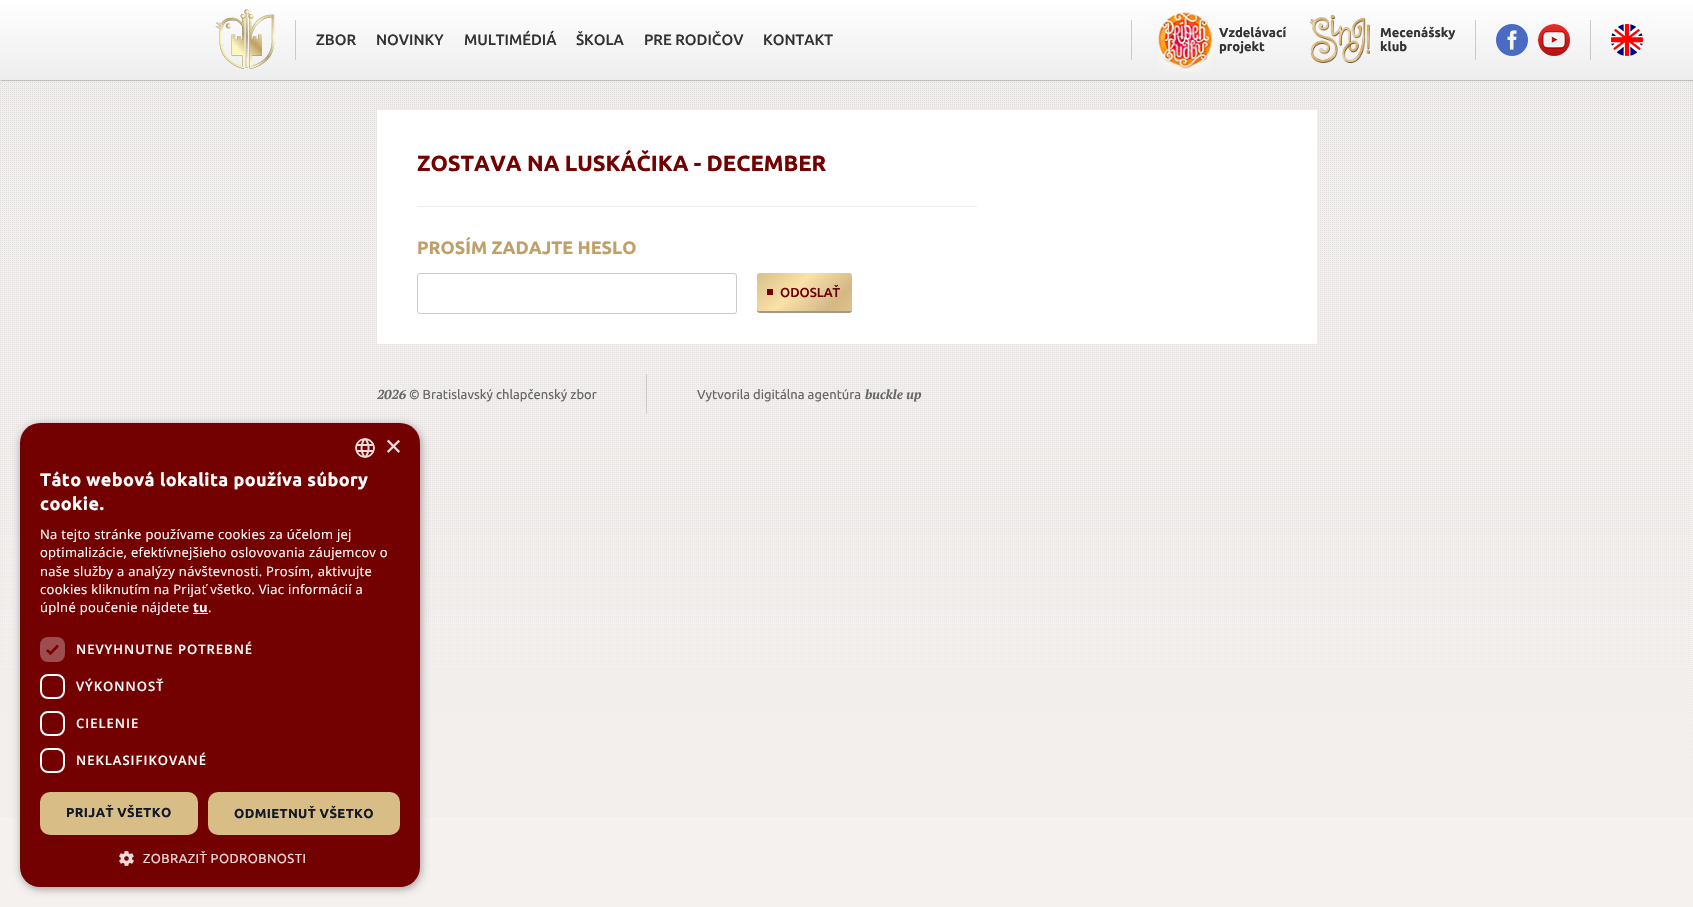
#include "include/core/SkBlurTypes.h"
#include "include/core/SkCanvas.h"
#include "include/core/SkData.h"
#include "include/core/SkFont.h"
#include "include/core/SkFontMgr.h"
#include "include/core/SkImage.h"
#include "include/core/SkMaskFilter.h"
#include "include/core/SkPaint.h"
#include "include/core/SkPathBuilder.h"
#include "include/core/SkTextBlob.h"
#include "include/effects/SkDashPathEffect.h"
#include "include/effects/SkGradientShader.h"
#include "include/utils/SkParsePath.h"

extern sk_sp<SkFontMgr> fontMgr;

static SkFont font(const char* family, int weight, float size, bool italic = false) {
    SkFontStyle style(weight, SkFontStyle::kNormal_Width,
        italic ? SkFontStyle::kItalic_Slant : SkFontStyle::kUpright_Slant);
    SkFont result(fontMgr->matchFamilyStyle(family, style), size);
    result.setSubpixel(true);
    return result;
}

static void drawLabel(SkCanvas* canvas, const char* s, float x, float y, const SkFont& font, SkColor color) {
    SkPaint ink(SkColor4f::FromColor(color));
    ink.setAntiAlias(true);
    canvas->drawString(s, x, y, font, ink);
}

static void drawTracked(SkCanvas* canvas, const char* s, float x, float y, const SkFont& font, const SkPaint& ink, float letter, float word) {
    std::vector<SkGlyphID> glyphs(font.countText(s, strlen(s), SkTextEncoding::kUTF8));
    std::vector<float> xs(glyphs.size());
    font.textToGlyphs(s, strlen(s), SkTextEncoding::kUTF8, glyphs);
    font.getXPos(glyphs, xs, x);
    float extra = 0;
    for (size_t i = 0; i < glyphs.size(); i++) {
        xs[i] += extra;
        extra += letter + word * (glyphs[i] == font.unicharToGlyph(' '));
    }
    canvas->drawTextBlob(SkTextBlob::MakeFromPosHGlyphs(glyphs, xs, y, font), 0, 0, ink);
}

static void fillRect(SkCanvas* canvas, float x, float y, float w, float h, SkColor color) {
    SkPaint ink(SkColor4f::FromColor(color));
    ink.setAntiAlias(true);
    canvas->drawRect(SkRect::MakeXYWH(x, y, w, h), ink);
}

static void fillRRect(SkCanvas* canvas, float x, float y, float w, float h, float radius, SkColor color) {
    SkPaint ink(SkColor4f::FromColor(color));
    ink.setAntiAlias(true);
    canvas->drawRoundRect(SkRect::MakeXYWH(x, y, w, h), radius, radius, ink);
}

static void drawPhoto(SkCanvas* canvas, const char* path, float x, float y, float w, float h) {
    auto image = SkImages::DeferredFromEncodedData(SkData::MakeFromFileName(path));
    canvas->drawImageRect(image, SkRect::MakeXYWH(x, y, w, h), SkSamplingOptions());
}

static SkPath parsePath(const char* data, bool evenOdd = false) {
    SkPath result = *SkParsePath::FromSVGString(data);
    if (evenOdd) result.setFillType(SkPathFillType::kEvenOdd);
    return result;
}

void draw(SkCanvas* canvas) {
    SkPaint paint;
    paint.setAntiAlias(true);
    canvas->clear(0xFFF5F1EE);
    drawPhoto(canvas, "assets/img1.png", 0, 80, 1693, 737);
    paint.setColor(0x2B000000);
    paint.setMaskFilter(SkMaskFilter::MakeBlur(kNormal_SkBlurStyle, 0.5f));
    canvas->drawRect(SkRect::MakeXYWH(1, 1, 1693, 80), paint);
    paint.setMaskFilter(nullptr);
    {
        const SkColor colors[] = {0xFFFFFFFF, 0xFFEDEDED};
        const float stops[] = {0, 1};
        const SkPoint ends[] = {{847, 0}, {847, 80}};
        paint.setShader(SkGradientShader::MakeLinear(ends, colors, stops, 2, SkTileMode::kClamp));
        paint.setAlpha(255);
    }
    canvas->drawRect(SkRect::MakeXYWH(0, 0, 1693, 80), paint);
    drawPhoto(canvas, "assets/img2.png", 215, 9, 60, 60);
    fillRect(canvas, 295, 20, 1, 40, 0xFFCACACA);
    SkFont font1 = font("Ubuntu", 500, 15);
    drawLabel(canvas, "ZBOR", 316, 45, font1, 0xFF333333);
    drawLabel(canvas, "NOVINKY", 376, 45, font1, 0xFF333333);
    drawLabel(canvas, "MULTIMÉDIÁ", 464, 45, font1, 0xFF333333);
    drawLabel(canvas, "ŠKOLA", 576, 45, font1, 0xFF333333);
    drawLabel(canvas, "PRE RODIČOV", 644, 45, font1, 0xFF333333);
    drawLabel(canvas, "KONTAKT", 763, 45, font1, 0xFF333333);
    fillRect(canvas, 1131, 20, 1, 40, 0xFFCACACA);
    drawPhoto(canvas, "assets/img3.png", 1158, 11, 55, 61);
    SkFont font2 = font("Ubuntu", 700, 13);
    drawLabel(canvas, "Vzdelávací", 1219, 37, font2, 0xFF333333);
    drawLabel(canvas, "projekt", 1219, 51, font2, 0xFF333333);
    drawPhoto(canvas, "assets/img4.png", 1310, 15, 60, 48);
    drawLabel(canvas, "Mecenášsky", 1380, 37, font2, 0xFF333333);
    drawLabel(canvas, "klub", 1380, 51, font2, 0xFF333333);
    fillRect(canvas, 1475, 20, 1, 40, 0xFFCACACA);
    drawPhoto(canvas, "assets/img5.png", 1496, 24, 32, 32);
    drawPhoto(canvas, "assets/img6.png", 1538, 24, 32, 32);
    fillRect(canvas, 1590, 20, 1, 40, 0xFFCACACA);
    drawPhoto(canvas, "assets/img7.png", 1611, 24, 32, 32);
    fillRect(canvas, 377, 110, 940, 234, 0xFFFFFFFF);
    fillRect(canvas, 417, 206, 560, 1, 0xFFEDEDED);
    SkFont font3 = font("Ubuntu", 700, 22);
    drawLabel(canvas, "ZOSTAVA NA LUSKÁČIKA - DECEMBER", 417, 171, font3, 0xFF730101);
    SkFont font4 = font("Ubuntu", 700, 18);
    drawLabel(canvas, "PROSÍM ZADAJTE HESLO", 417, 254, font4, 0xFFBFA069);
    paint.setStroke(true);
    paint.setStrokeWidth(1);
    paint.setShader(nullptr);
    paint.setColor(0xFFCACACA);
    canvas->drawRoundRect(SkRect::MakeXYWH(417.5f, 273.5f, 319, 40), 2.5f, 2.5f, paint);
    paint.setStroke(false);
    paint.setColor(0xFF9F988C);
    canvas->drawPath(parsePath("M757 308V310C757 312 758 313 760 313H849C851 313 852 312 852 310V308C852 310 851 311 849 311H760C758 311 757 310 757 308Z"), paint);
    {
        const SkColor colors[] = {0xFFD8C088, 0xFFFAE1A8, 0xFFD3B886, 0xFFEBCE8B};
        const float stops[] = {0, 0.34f, 0.67f, 1};
        const SkPoint ends[] = {{774, 256}, {854, 336}};
        paint.setShader(SkGradientShader::MakeLinear(ends, colors, stops, 4, SkTileMode::kClamp));
        paint.setAlpha(255);
    }
    canvas->drawRoundRect(SkRect::MakeXYWH(757, 273, 95, 38), 3, 3, paint);
    fillRect(canvas, 767, 289, 6, 6, 0xFF730101);
    SkFont font5 = font("Ubuntu", 500, 13);
    drawLabel(canvas, "ODOSLAŤ", 780, 297, font5, 0xFF690202);
    SkFont font6 = font("PT Serif", 700, 13, true);
    drawLabel(canvas, "2026", 377, 399, font6, 0xFF666666);
    SkFont font7 = font("Ubuntu", 400, 13);
    drawLabel(canvas, "© Bratislavský chlapčenský zbor", 409, 399, font7, 0xFF666666);
    fillRect(canvas, 646, 374, 1, 40, 0xFFCACACA);
    drawLabel(canvas, "Vytvorila digitálna agentúra", 697, 399, font7, 0xFF666666);
    drawLabel(canvas, "buckle up", 865, 399, font6, 0xFF666666);
    paint.setShader(nullptr);
    paint.setColor(0x59000000);
    paint.setMaskFilter(SkMaskFilter::MakeBlur(kNormal_SkBlurStyle, 4));
    canvas->drawRoundRect(SkRect::MakeXYWH(21, 425, 400, 464), 20, 20, paint);
    paint.setMaskFilter(nullptr);
    fillRRect(canvas, 20, 423, 400, 464, 20, 0xFF730101);
    drawPhoto(canvas, "assets/img8.png", 355, 438, 20, 20);
    SkFont font8 = font("Liberation Sans", 400, 29);
    drawLabel(canvas, "×", 385, 456, font8, 0xFFEAD9D9);
    paint.setColor(0xFFFFFFFF);
    drawTracked(canvas, "Táto webová lokalita používa súbory", 40, 486, font4, paint, 0.4f, 0);
    drawTracked(canvas, "cookie.", 40, 510, font4, paint, 0.4f, 0);
    SkFont font9 = font("Open Sans", 400, 13);
    drawTracked(canvas, "Na tejto stránke používame cookies za účelom jej", 40, 539, font9, paint, 0.3f, 0);
    drawTracked(canvas, "optimalizácie, efektívnejšieho oslovovania záujemcov o", 40, 557, font9, paint, 0.3f, 0);
    drawTracked(canvas, "naše služby a analýzy návštevnosti. Prosím, aktivujte", 40, 576, font9, paint, 0.3f, 0);
    drawTracked(canvas, "cookies kliknutím na Prijať všetko. Viac informácií a", 40, 594, font9, paint, 0.3f, 0);
    drawTracked(canvas, "úplné poučenie nájdete", 40, 612, font9, paint, 0.3f, 0);
    SkFont font10 = font("Open Sans", 700, 13);
    drawTracked(canvas, "tu", 193, 612, font10, paint, 0.3f, 0);
    drawTracked(canvas, ".", 208, 612, font9, paint, 0.3f, 0);
    fillRect(canvas, 193, 613, 15, 1, 0xFFFFFFFF);
    fillRRect(canvas, 40, 637, 25, 25, 8, 0xFF9D4D4D);
    paint.setStroke(true);
    paint.setStrokeWidth(2.6f);
    paint.setColor(0xFF730101);
    canvas->drawPath(parsePath("M47 650L50.5 653.5L58 645.5"), paint);
    SkFont font11 = font("Open Sans", 600, 13);
    paint.setStroke(false);
    paint.setColor(0xFFFFFFFF);
    drawTracked(canvas, "NEVYHNUTNE POTREBNÉ", 76, 654, font11, paint, 1, 0);
    paint.setStroke(true);
    paint.setStrokeWidth(2);
    canvas->drawRoundRect(SkRect::MakeXYWH(41, 675, 23, 23), 7, 7, paint);
    paint.setStroke(false);
    drawTracked(canvas, "VÝKONNOSŤ", 76, 691, font11, paint, 1, 0);
    paint.setStroke(true);
    canvas->drawRoundRect(SkRect::MakeXYWH(41, 712, 23, 23), 7, 7, paint);
    paint.setStroke(false);
    drawTracked(canvas, "CIELENIE", 76, 728, font11, paint, 1, 0);
    paint.setStroke(true);
    canvas->drawRoundRect(SkRect::MakeXYWH(41, 749, 23, 23), 7, 7, paint);
    paint.setStroke(false);
    drawTracked(canvas, "NEKLASIFIKOVANÉ", 76, 765, font11, paint, 1, 0);
    fillRRect(canvas, 40, 792, 158, 43, 10, 0xFFD9BD87);
    paint.setColor(0xFF111828);
    drawTracked(canvas, "PRIJAŤ VŠETKO", 66, 817, font2, paint, 0.4f, 0);
    fillRRect(canvas, 208, 792, 192, 43, 10, 0xFFD9BD87);
    drawTracked(canvas, "ODMIETNUŤ VŠETKO", 234, 818, font2, paint, 0.4f, 0);
    drawPhoto(canvas, "assets/img9.png", 119, 851, 15, 15);
    paint.setColor(0xFFEAD9D9);
    drawTracked(canvas, "ZOBRAZIŤ PODROBNOSTI", 143, 863, font7, paint, 0.4f, 0);
}
